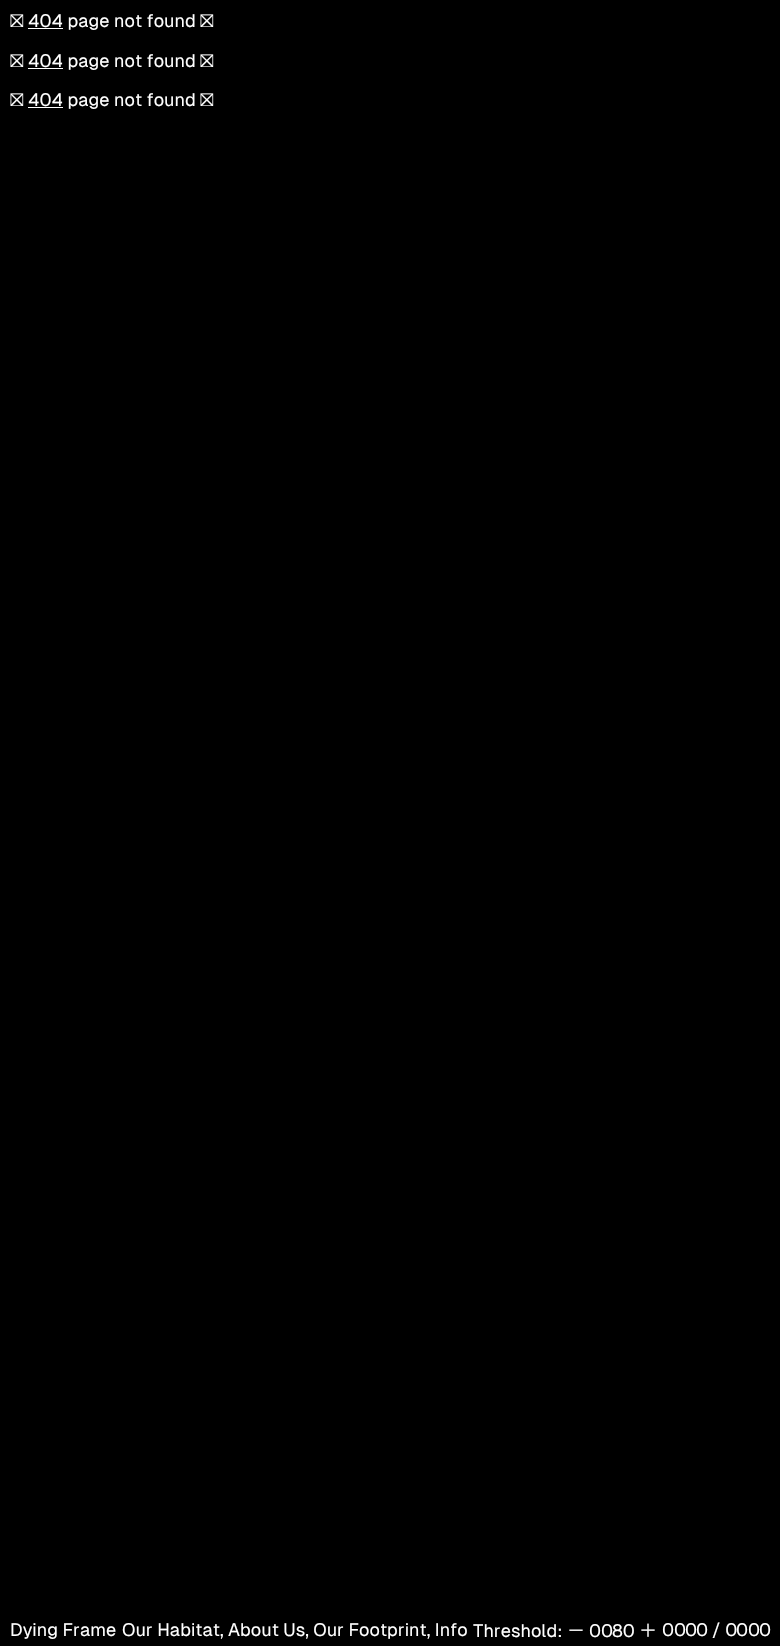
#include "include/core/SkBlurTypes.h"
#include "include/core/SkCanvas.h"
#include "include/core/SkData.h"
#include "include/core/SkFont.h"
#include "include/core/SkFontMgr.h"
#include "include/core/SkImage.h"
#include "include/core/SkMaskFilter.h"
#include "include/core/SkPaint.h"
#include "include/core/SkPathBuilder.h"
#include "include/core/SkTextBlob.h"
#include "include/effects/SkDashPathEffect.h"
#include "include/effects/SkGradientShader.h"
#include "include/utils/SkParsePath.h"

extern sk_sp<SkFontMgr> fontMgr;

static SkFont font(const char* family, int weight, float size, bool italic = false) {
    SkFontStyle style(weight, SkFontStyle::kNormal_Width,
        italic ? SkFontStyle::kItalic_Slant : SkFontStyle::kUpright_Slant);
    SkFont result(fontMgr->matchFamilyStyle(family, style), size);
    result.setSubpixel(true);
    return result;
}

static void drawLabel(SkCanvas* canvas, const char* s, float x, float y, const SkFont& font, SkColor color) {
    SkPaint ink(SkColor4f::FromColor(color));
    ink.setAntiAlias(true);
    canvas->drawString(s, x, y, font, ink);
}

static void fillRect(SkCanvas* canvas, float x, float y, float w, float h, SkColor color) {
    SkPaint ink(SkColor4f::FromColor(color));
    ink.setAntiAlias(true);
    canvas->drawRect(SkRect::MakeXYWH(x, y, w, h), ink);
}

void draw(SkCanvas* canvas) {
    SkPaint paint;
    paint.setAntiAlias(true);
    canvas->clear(0xFF000000);
    SkFont font1 = font("FreeSerif", 400, 18);
    drawLabel(canvas, "⛝", 10, 27, font1, 0xFFFFFFFF);
    fillRect(canvas, 28, 28, 35, 1, 0xFFFFFFFF);
    SkFont font2 = font("Geist", 400, 18);
    drawLabel(canvas, "404 page not found", 28, 27, font2, 0xFFFFFFFF);
    drawLabel(canvas, "⛝", 200, 27, font1, 0xFFFFFFFF);
    drawLabel(canvas, "⛝", 10, 67, font1, 0xFFFFFFFF);
    fillRect(canvas, 28, 68, 35, 1, 0xFFFFFFFF);
    drawLabel(canvas, "404 page not found", 28, 67, font2, 0xFFFFFFFF);
    drawLabel(canvas, "⛝", 200, 67, font1, 0xFFFFFFFF);
    drawLabel(canvas, "⛝", 10, 106, font1, 0xFFFFFFFF);
    fillRect(canvas, 28, 107, 35, 1, 0xFFFFFFFF);
    drawLabel(canvas, "404 page not found", 28, 106, font2, 0xFFFFFFFF);
    drawLabel(canvas, "⛝", 200, 106, font1, 0xFFFFFFFF);
    drawLabel(canvas, "Dying Frame", 10, 1636, font2, 0xFFFFFFFF);
    drawLabel(canvas, "Our Habitat, About Us, Our Footprint, Info", 122, 1636, font2, 0xFFFFFFFF);
    drawLabel(canvas, "Threshold:", 473, 1637, font2, 0xFFFFFFFF);
    SkFont font3 = font("Noto Sans SC", 400, 18);
    drawLabel(canvas, "－", 567, 1637, font3, 0xFFFFFFFF);
    drawLabel(canvas, "0", 589, 1637, font2, 0xFFFFFFFF);
    drawLabel(canvas, "0", 601, 1637, font2, 0xFFFFFFFF);
    drawLabel(canvas, "80", 612, 1637, font2, 0xFFFFFFFF);
    drawLabel(canvas, "＋", 639, 1637, font3, 0xFFFFFFFF);
    drawLabel(canvas, "0", 662, 1636, font2, 0xFFFFFFFF);
    drawLabel(canvas, "0", 674, 1636, font2, 0xFFFFFFFF);
    drawLabel(canvas, "0", 685, 1636, font2, 0xFFFFFFFF);
    drawLabel(canvas, "0", 696, 1636, font2, 0xFFFFFFFF);
    drawLabel(canvas, "/ 0", 712, 1636, font2, 0xFFFFFFFF);
    drawLabel(canvas, "0", 736, 1636, font2, 0xFFFFFFFF);
    drawLabel(canvas, "0", 748, 1636, font2, 0xFFFFFFFF);
    drawLabel(canvas, "0", 759, 1636, font2, 0xFFFFFFFF);
}
